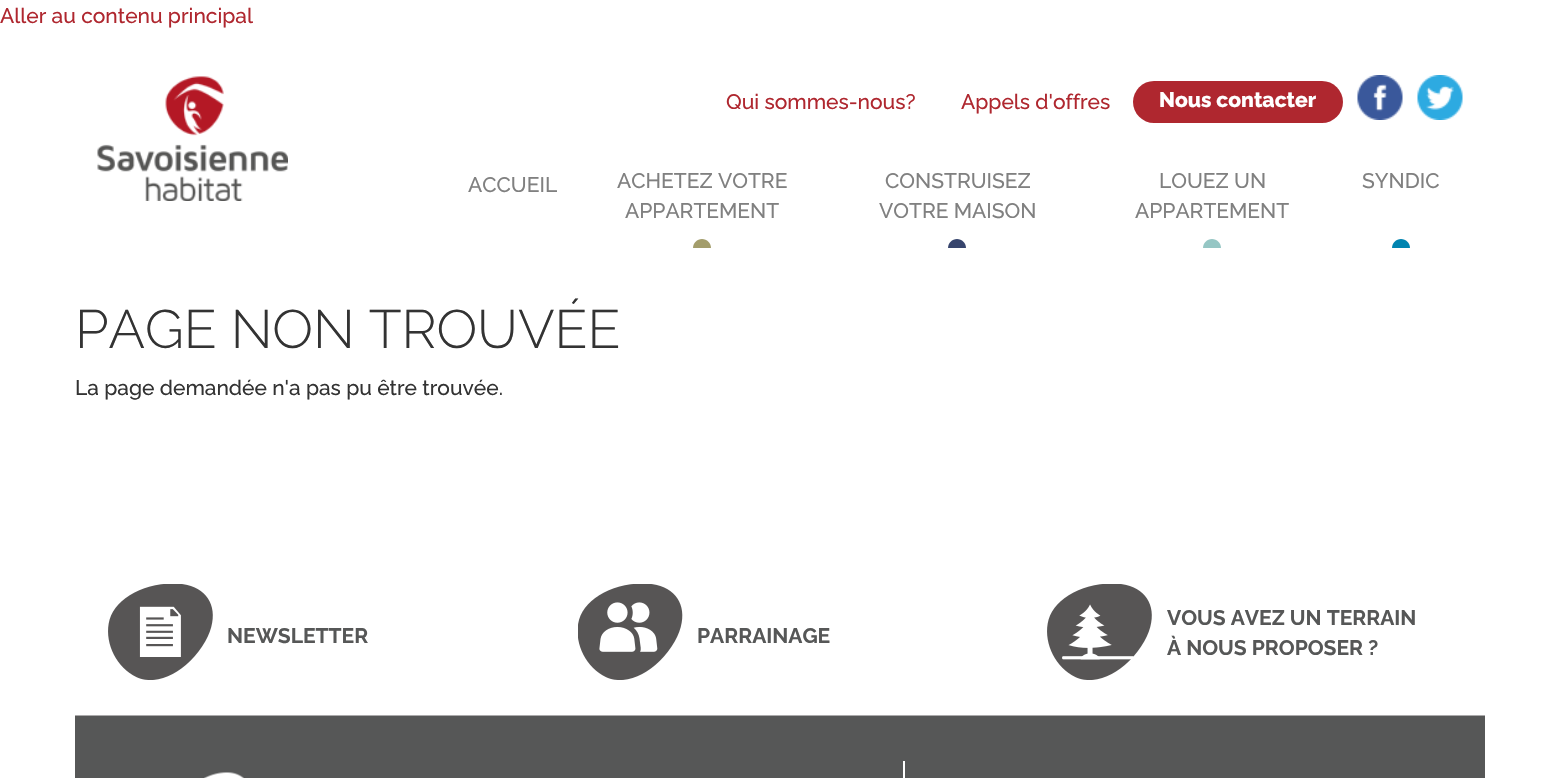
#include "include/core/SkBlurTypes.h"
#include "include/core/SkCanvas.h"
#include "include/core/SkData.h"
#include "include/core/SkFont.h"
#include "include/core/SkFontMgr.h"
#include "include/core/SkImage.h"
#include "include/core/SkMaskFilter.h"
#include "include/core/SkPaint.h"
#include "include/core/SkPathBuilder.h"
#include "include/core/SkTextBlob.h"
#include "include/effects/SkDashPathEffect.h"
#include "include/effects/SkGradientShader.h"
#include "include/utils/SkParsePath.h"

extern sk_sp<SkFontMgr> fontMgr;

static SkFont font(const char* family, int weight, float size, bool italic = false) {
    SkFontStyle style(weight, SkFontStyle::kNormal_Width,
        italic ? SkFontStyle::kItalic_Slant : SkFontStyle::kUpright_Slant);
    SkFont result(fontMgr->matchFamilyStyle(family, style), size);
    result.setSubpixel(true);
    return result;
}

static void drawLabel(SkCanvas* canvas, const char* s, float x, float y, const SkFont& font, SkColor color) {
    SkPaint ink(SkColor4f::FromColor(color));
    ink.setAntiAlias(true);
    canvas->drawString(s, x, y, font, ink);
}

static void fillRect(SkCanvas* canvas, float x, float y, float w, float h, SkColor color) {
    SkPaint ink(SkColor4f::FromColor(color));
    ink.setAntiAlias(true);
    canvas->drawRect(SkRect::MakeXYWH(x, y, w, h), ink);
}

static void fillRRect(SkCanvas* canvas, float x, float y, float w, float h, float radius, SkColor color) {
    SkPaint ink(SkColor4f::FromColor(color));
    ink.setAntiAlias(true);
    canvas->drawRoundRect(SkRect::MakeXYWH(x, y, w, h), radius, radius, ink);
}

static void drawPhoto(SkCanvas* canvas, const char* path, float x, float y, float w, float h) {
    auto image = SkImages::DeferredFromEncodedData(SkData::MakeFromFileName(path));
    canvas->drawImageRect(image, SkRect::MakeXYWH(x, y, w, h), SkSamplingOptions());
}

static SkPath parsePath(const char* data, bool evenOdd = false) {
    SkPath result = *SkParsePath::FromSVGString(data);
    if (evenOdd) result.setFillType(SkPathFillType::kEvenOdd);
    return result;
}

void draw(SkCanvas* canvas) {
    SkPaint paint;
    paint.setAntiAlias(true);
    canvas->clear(0xFFFFFFFF);
    SkFont font1 = font("Raleway", 500, 21);
    drawLabel(canvas, "Aller au contenu principal", 0, 23, font1, 0xFFAF272F);
    drawPhoto(canvas, "assets/img1.png", 97, 76, 191, 125);
    drawLabel(canvas, "Qui sommes-nous?", 726, 109, font1, 0xFFAF272F);
    drawLabel(canvas, "Appels d'offres", 961, 109, font1, 0xFFAF272F);
    fillRRect(canvas, 1133, 81, 210, 42, 21, 0xFFAF272F);
    SkFont font2 = font("Raleway", 800, 21);
    drawLabel(canvas, "Nous contacter", 1159, 107, font2, 0xFFFFFFFF);
    drawPhoto(canvas, "assets/img2.png", 1357, 75, 46, 45);
    drawPhoto(canvas, "assets/img3.png", 1417, 75, 46, 45);
    drawLabel(canvas, "ACCUEIL", 468, 192, font1, 0xFF808080);
    drawLabel(canvas, "ACHETEZ VOTRE", 617, 188, font1, 0xFF808080);
    drawLabel(canvas, "APPARTEMENT", 625, 218, font1, 0xFF808080);
    paint.setColor(0xFFA39D6B);
    canvas->drawPath(parsePath("M702 239C707 239 711 243 711 248H693C693 243 697 239 702 239Z"), paint);
    drawLabel(canvas, "CONSTRUISEZ", 885, 188, font1, 0xFF808080);
    drawLabel(canvas, "VOTRE MAISON", 879, 218, font1, 0xFF808080);
    paint.setColor(0xFF37456D);
    canvas->drawPath(parsePath("M957 239C962 239 966 243 966 248H948C948 243 952 239 957 239Z"), paint);
    drawLabel(canvas, "LOUEZ UN", 1159, 188, font1, 0xFF808080);
    drawLabel(canvas, "APPARTEMENT", 1135, 218, font1, 0xFF808080);
    paint.setColor(0xFF95C6C4);
    canvas->drawPath(parsePath("M1212 239C1217 239 1221 243 1221 248H1203C1203 243 1207 239 1212 239Z"), paint);
    drawLabel(canvas, "SYNDIC", 1362, 188, font1, 0xFF808080);
    paint.setColor(0xFF0084B0);
    canvas->drawPath(parsePath("M1401 239C1406 239 1410 243 1410 248H1392C1392 243 1396 239 1401 239Z"), paint);
    SkFont font3 = font("Raleway", 300, 54);
    drawLabel(canvas, "PAGE NON TROUVÉE", 75, 348, font3, 0xFF333333);
    drawLabel(canvas, "La page demandée n'a pas pu être trouvée.", 75, 395, font1, 0xFF333333);
    drawPhoto(canvas, "assets/img4.png", 108, 584, 105, 96);
    SkFont font4 = font("Raleway", 700, 21);
    drawLabel(canvas, "NEWSLETTER", 227, 643, font4, 0xFF565757);
    drawPhoto(canvas, "assets/img5.png", 578, 584, 105, 96);
    drawLabel(canvas, "PARRAINAGE", 697, 643, font4, 0xFF565757);
    drawPhoto(canvas, "assets/img6.png", 1047, 584, 105, 96);
    drawLabel(canvas, "VOUS AVEZ UN TERRAIN", 1167, 625, font4, 0xFF565757);
    drawLabel(canvas, "À NOUS PROPOSER ?", 1167, 655, font4, 0xFF565757);
    fillRect(canvas, 75, 716, 1410, 62, 0xFF565757);
    fillRect(canvas, 75, 715, 1410, 1, 0xFFABAAAB);
    drawPhoto(canvas, "assets/img7.png", 204, 772, 40, 6);
    fillRect(canvas, 903, 761, 2, 17, 0xFFFFFFFF);
}
